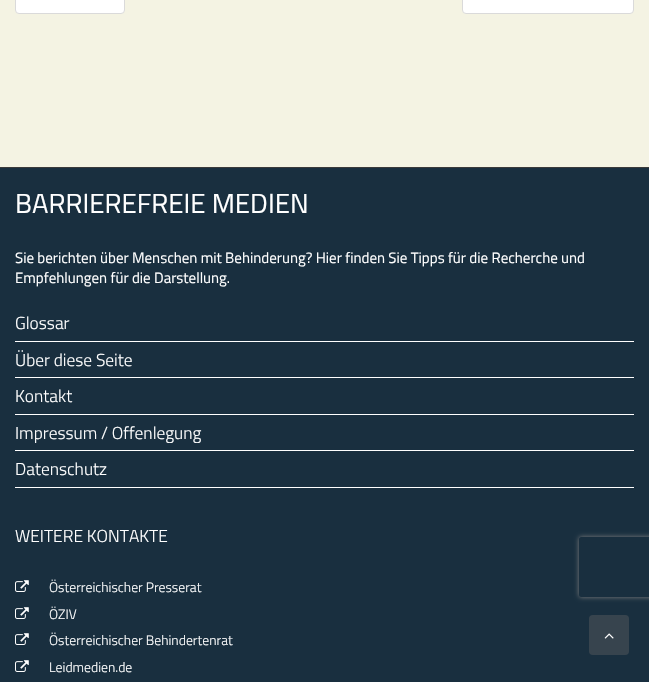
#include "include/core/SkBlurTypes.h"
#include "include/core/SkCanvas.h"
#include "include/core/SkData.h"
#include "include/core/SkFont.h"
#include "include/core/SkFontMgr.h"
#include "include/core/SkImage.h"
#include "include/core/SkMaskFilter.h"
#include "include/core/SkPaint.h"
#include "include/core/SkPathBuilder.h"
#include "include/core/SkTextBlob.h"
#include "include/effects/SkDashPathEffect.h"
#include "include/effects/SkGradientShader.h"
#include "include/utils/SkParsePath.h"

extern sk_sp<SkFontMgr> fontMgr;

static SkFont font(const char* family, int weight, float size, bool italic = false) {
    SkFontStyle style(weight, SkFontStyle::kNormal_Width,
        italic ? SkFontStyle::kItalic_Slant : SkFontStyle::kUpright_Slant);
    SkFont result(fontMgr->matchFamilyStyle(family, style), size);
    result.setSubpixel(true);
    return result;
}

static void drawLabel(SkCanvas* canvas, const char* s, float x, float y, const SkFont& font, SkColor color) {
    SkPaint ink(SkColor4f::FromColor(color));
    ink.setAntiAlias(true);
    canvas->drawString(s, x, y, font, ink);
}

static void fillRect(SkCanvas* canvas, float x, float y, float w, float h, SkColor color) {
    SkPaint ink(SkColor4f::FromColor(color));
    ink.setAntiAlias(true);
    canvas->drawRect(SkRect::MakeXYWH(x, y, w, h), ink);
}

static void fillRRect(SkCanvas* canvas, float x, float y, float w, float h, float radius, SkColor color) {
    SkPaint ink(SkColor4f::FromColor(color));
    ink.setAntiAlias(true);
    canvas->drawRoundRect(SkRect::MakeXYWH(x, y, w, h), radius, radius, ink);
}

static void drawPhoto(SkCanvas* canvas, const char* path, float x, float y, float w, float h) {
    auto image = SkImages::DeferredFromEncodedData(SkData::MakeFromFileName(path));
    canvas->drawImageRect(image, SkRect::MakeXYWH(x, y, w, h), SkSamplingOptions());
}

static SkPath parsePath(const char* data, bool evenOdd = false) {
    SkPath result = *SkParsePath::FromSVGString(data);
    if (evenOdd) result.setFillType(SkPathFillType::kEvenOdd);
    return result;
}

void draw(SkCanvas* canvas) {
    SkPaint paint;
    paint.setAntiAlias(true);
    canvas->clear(0xFFF4F3E3);
    paint.setColor(0xFFFFFFFF);
    canvas->drawRoundRect(SkRect::MakeXYWH(15.5f, -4.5f, 109, 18), 3.5f, 3.5f, paint);
    paint.setStroke(true);
    paint.setStrokeWidth(1);
    paint.setColor(0xFFDADADA);
    canvas->drawRoundRect(SkRect::MakeXYWH(15.5f, -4.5f, 109, 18), 3.5f, 3.5f, paint);
    paint.setStroke(false);
    paint.setColor(0xFFFFFFFF);
    canvas->drawRoundRect(SkRect::MakeXYWH(462.5f, -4.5f, 171, 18), 3.5f, 3.5f, paint);
    paint.setStroke(true);
    paint.setColor(0xFFDADADA);
    canvas->drawRoundRect(SkRect::MakeXYWH(462.5f, -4.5f, 171, 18), 3.5f, 3.5f, paint);
    fillRect(canvas, 0, 168, 649, 514, 0xFF192F3F);
    fillRect(canvas, 0, 167, 649, 1, 0xFF3A3A3A);
    SkFont font1 = font("Titillium Web", 400, 27.6f);
    drawLabel(canvas, "BARRIEREFREIE MEDIEN", 15, 213, font1, 0xFFFFFFFF);
    SkFont font2 = font("Titillium Web", 400, 15);
    drawLabel(canvas, "Sie berichten über Menschen mit Behinderung? Hier finden Sie Tipps für die Recherche und", 15, 263, font2, 0xFFFFFFFF);
    drawLabel(canvas, "Empfehlungen für die Darstellung.", 15, 283, font2, 0xFFFFFFFF);
    fillRect(canvas, 15, 341, 619, 1, 0xFFFFFFFF);
    SkFont font3 = font("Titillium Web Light", 300, 17.4f);
    drawLabel(canvas, "Glossar", 15, 329, font3, 0xFFFFFFFF);
    fillRect(canvas, 15, 377, 619, 1, 0xFFFFFFFF);
    drawLabel(canvas, "Über diese Seite", 15, 366, font3, 0xFFFFFFFF);
    fillRect(canvas, 15, 414, 619, 1, 0xFFFFFFFF);
    drawLabel(canvas, "Kontakt", 15, 402, font3, 0xFFFFFFFF);
    fillRect(canvas, 15, 450, 619, 1, 0xFFFFFFFF);
    drawLabel(canvas, "Impressum / Offenlegung", 15, 439, font3, 0xFFFFFFFF);
    fillRect(canvas, 15, 487, 619, 1, 0xFFFFFFFF);
    drawLabel(canvas, "Datenschutz", 15, 475, font3, 0xFFFFFFFF);
    drawLabel(canvas, "WEITERE KONTAKTE", 15, 542, font3, 0xFFFFFFFF);
    drawPhoto(canvas, "assets/img1.png", 15, 580, 14, 12);
    SkFont font4 = font("Titillium Web Light", 300, 13.75f);
    drawLabel(canvas, "Österreichischer Presserat", 49, 592, font4, 0xFFFFFFFF);
    drawPhoto(canvas, "assets/img1.png", 15, 607, 14, 12);
    drawLabel(canvas, "ÖZIV", 49, 619, font4, 0xFFFFFFFF);
    drawPhoto(canvas, "assets/img1.png", 15, 633, 14, 12);
    drawLabel(canvas, "Österreichischer Behindertenrat", 49, 645, font4, 0xFFFFFFFF);
    drawPhoto(canvas, "assets/img1.png", 15, 660, 14, 12);
    drawLabel(canvas, "Leidmedien.de", 49, 672, font4, 0xFFFFFFFF);
    fillRRect(canvas, 589, 615, 40, 40, 4, 0xFF37444E);
    drawPhoto(canvas, "assets/img2.png", 604, 633, 10, 6);
    canvas->save();
    canvas->clipPath(parsePath("M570 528H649V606H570ZM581 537H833C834 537 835 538 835 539V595C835 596 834 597 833 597H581C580 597 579 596 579 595V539C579 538 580 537 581 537Z", true), true);
    paint.setStroke(false);
    paint.setColor(0xFF808080);
    paint.setMaskFilter(SkMaskFilter::MakeBlur(kNormal_SkBlurStyle, 2.5f));
    canvas->drawRoundRect(SkRect::MakeXYWH(579, 537, 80, 60), 2, 2, paint);
    paint.setMaskFilter(nullptr);
    canvas->restore();
}
